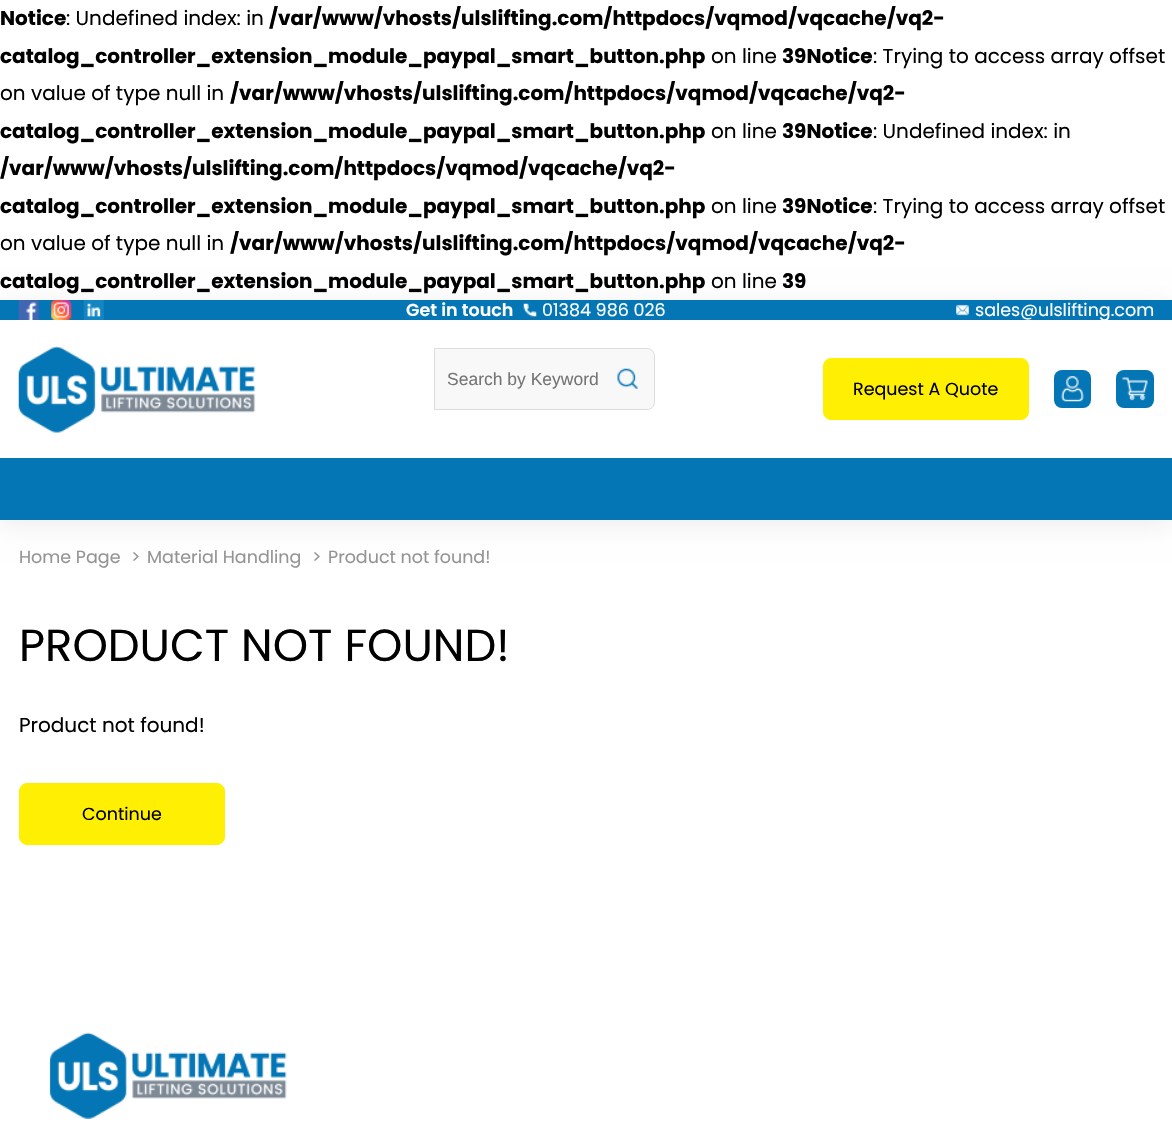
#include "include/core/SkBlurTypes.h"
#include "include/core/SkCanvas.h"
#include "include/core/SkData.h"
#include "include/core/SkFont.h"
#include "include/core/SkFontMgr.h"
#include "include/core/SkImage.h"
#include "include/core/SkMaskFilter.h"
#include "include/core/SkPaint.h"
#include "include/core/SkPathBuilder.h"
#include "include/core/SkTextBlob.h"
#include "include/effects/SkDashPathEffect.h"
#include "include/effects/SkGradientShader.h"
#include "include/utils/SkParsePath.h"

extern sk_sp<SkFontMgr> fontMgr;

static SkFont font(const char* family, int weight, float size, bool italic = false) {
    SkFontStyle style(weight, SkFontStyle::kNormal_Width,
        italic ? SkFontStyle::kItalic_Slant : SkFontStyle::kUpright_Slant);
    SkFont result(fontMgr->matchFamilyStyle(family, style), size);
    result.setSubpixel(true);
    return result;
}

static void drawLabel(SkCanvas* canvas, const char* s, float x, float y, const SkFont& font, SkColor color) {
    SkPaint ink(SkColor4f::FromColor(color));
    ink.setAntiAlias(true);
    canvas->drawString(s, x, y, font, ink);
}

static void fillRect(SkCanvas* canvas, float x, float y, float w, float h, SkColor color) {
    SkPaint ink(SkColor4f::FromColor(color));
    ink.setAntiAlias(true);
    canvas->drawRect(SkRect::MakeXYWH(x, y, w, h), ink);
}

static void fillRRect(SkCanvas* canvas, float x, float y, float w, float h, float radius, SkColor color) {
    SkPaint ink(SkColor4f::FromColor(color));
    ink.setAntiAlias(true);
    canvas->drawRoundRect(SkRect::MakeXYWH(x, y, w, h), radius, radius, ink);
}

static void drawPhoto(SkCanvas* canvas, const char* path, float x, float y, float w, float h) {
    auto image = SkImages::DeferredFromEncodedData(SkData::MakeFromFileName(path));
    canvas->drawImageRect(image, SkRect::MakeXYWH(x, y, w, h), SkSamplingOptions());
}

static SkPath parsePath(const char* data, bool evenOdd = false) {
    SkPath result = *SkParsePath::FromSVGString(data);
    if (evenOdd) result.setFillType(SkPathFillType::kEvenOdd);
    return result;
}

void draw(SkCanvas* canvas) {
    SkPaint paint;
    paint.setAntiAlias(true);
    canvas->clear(0xFFFFFFFF);
    SkFont font1 = font("Poppins", 700, 20);
    drawLabel(canvas, "Notice", 0, 25, font1, 0xFF000000);
    SkFont font2 = font("Poppins", 400, 20);
    drawLabel(canvas, ": Undefined index: in", 66, 25, font2, 0xFF000000);
    drawLabel(canvas, "/var/www/vhosts/ulslifting.com/httpdocs/vqmod/vqcache/vq2-", 269, 25, font1, 0xFF000000);
    drawLabel(canvas, "catalog_controller_extension_module_paypal_smart_button.php", 0, 63, font1, 0xFF000000);
    drawLabel(canvas, "on line", 711, 63, font2, 0xFF000000);
    drawLabel(canvas, "39Notice", 782, 63, font1, 0xFF000000);
    drawLabel(canvas, ": Trying to access array offset", 873, 63, font2, 0xFF000000);
    drawLabel(canvas, "on value of type null in", 0, 100, font2, 0xFF000000);
    drawLabel(canvas, "/var/www/vhosts/ulslifting.com/httpdocs/vqmod/vqcache/vq2-", 230, 100, font1, 0xFF000000);
    drawLabel(canvas, "catalog_controller_extension_module_paypal_smart_button.php", 0, 138, font1, 0xFF000000);
    drawLabel(canvas, "on line", 711, 138, font2, 0xFF000000);
    drawLabel(canvas, "39Notice", 782, 138, font1, 0xFF000000);
    drawLabel(canvas, ": Undefined index: in", 873, 138, font2, 0xFF000000);
    drawLabel(canvas, "/var/www/vhosts/ulslifting.com/httpdocs/vqmod/vqcache/vq2-", 0, 175, font1, 0xFF000000);
    drawLabel(canvas, "catalog_controller_extension_module_paypal_smart_button.php", 0, 213, font1, 0xFF000000);
    drawLabel(canvas, "on line", 711, 213, font2, 0xFF000000);
    drawLabel(canvas, "39Notice", 782, 213, font1, 0xFF000000);
    drawLabel(canvas, ": Trying to access array offset", 873, 213, font2, 0xFF000000);
    drawLabel(canvas, "on value of type null in", 0, 250, font2, 0xFF000000);
    drawLabel(canvas, "/var/www/vhosts/ulslifting.com/httpdocs/vqmod/vqcache/vq2-", 230, 250, font1, 0xFF000000);
    drawLabel(canvas, "catalog_controller_extension_module_paypal_smart_button.php", 0, 288, font1, 0xFF000000);
    drawLabel(canvas, "on line", 711, 288, font2, 0xFF000000);
    drawLabel(canvas, "39", 782, 288, font1, 0xFF000000);
    canvas->save();
    canvas->clipPath(parsePath("M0 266H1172V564H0ZM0 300H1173V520H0Z", true), true);
    paint.setColor(0x12000000);
    paint.setMaskFilter(SkMaskFilter::MakeBlur(kNormal_SkBlurStyle, 12.5f));
    canvas->drawRect(SkRect::MakeXYWH(0, 305, 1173, 220), paint);
    paint.setMaskFilter(nullptr);
    canvas->restore();
    fillRect(canvas, 0, 300, 1172, 20, 0xFF0476B5);
    drawPhoto(canvas, "assets/img1.png", 18, 300, 21, 20);
    drawPhoto(canvas, "assets/img2.png", 51, 300, 21, 20);
    drawPhoto(canvas, "assets/img3.png", 83, 300, 21, 20);
    SkFont font3 = font("Poppins", 600, 17.5f);
    drawLabel(canvas, "Get in touch", 406, 316, font3, 0xFFFFFFFF);
    drawPhoto(canvas, "assets/img4.png", 523, 303, 14, 14);
    SkFont font4 = font("Poppins", 400, 17.5f);
    drawLabel(canvas, "01384 986 026", 542, 316, font4, 0xFFFFFFFF);
    drawPhoto(canvas, "assets/img5.png", 956, 304, 13, 12);
    drawLabel(canvas, "sales@ulslifting.com", 975, 316, font4, 0xFFFFFFFF);
    drawPhoto(canvas, "assets/img6.png", 18, 346, 238, 87);
    paint.setColor(0xFFF8F8F8);
    canvas->drawPath(parsePath("M434.5 348.5H647C651 348.5 654.5 352 654.5 356V402C654.5 406 651 409.5 647 409.5H434.5Z"), paint);
    paint.setStroke(true);
    paint.setStrokeWidth(1);
    paint.setColor(0xFFDDDDDD);
    canvas->drawPath(parsePath("M434.5 348.5H647C651 348.5 654.5 352 654.5 356V402C654.5 406 651 409.5 647 409.5H434.5Z"), paint);
    SkFont font5 = font("Liberation Sans", 400, 17.5f);
    drawLabel(canvas, "Search by Keyword", 447, 385, font5, 0xFF757575);
    drawPhoto(canvas, "assets/img7.png", 617, 368, 21, 21);
    paint.setStroke(false);
    paint.setColor(0xFFFFEF03);
    canvas->drawRoundRect(SkRect::MakeXYWH(823.5f, 358.5f, 205, 61), 7.5f, 7.5f, paint);
    paint.setStroke(true);
    canvas->drawRoundRect(SkRect::MakeXYWH(823.5f, 358.5f, 205, 61), 7.5f, 7.5f, paint);
    drawLabel(canvas, "Request A Quote", 853, 395, font4, 0xFF000000);
    fillRRect(canvas, 1054, 370, 37, 38, 8, 0xFF0476B5);
    drawPhoto(canvas, "assets/img8.png", 1061, 376, 23, 26);
    fillRRect(canvas, 1116, 370, 38, 38, 8, 0xFF0476B5);
    drawPhoto(canvas, "assets/img9.png", 1122, 377, 26, 24);
    fillRect(canvas, 0, 458, 1172, 62, 0xFF0476B5);
    drawLabel(canvas, "Home Page", 19, 563, font4, 0xFF949494);
    drawLabel(canvas, ">", 131, 563, font4, 0xFF949494);
    drawLabel(canvas, "Material Handling", 147, 563, font4, 0xFF949494);
    drawLabel(canvas, ">", 312, 563, font4, 0xFF949494);
    drawLabel(canvas, "Product not found!", 328, 563, font4, 0xFF949494);
    SkFont font6 = font("Poppins", 400, 45);
    drawLabel(canvas, "PRODUCT NOT FOUND!", 19, 661, font6, 0xFF000000);
    drawLabel(canvas, "Product not found!", 19, 732, font2, 0xFF000000);
    paint.setStroke(false);
    canvas->drawRoundRect(SkRect::MakeXYWH(19.5f, 783.5f, 205, 61), 7.5f, 7.5f, paint);
    paint.setStroke(true);
    canvas->drawRoundRect(SkRect::MakeXYWH(19.5f, 783.5f, 205, 61), 7.5f, 7.5f, paint);
    drawLabel(canvas, "Continue", 82, 820, font4, 0xFF000000);
    drawPhoto(canvas, "assets/img10.png", 49, 1032, 238, 87);
}
